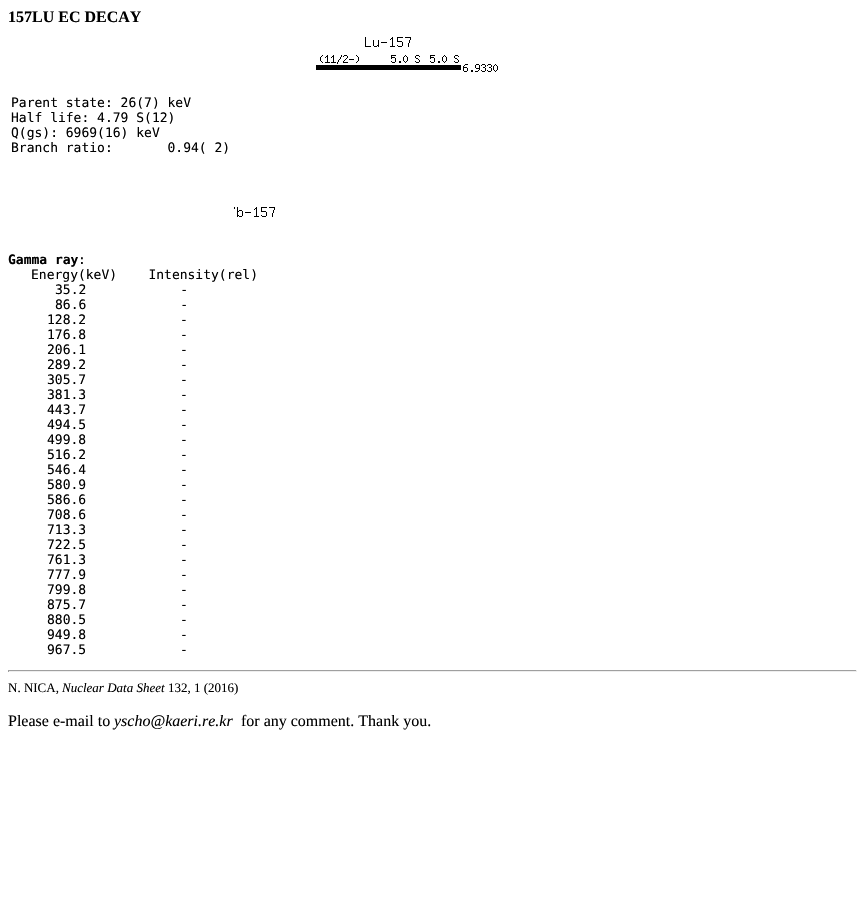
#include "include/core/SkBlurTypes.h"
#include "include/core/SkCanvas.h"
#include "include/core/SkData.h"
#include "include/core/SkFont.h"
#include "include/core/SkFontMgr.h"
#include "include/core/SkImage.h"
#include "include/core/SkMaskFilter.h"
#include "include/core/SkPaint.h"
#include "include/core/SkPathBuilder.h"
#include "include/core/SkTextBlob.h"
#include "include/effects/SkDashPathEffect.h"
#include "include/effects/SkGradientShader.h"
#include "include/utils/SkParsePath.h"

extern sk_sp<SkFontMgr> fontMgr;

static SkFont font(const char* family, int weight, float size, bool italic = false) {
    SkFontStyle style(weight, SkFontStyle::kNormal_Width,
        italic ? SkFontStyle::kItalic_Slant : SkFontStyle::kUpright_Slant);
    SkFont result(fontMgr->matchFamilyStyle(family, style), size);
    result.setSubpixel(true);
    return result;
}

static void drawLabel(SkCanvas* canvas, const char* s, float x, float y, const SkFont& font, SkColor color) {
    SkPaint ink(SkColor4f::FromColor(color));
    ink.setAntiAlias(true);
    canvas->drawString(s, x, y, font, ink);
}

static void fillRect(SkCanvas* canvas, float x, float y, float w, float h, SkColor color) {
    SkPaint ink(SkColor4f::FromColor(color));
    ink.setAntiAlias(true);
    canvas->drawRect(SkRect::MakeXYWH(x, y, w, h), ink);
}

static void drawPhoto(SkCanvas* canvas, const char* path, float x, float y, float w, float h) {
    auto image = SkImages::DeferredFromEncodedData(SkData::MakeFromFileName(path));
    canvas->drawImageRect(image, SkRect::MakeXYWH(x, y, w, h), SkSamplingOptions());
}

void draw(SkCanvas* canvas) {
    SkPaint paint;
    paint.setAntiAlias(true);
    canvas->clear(0xFFFFFFFF);
    SkFont font1 = font("Liberation Serif", 700, 16);
    drawLabel(canvas, "157LU EC DECAY", 8, 22, font1, 0xFF000000);
    SkFont font2 = font("DejaVu Sans Mono", 400, 13);
    drawLabel(canvas, "Parent state: 26(7) keV", 11, 107, font2, 0xFF000000);
    drawLabel(canvas, "Half life: 4.79 S(12)", 11, 122, font2, 0xFF000000);
    drawLabel(canvas, "Q(gs): 6969(16) keV", 11, 137, font2, 0xFF000000);
    drawLabel(canvas, "Branch ratio:       0.94( 2)", 11, 152, font2, 0xFF000000);
    drawPhoto(canvas, "assets/img1.png", 234, 37, 264, 180);
    SkFont font3 = font("DejaVu Sans Mono", 700, 13);
    drawLabel(canvas, "Gamma ray", 8, 264, font3, 0xFF000000);
    drawLabel(canvas, ":", 78, 264, font2, 0xFF000000);
    drawLabel(canvas, "Energy(keV)    Intensity(rel)", 31, 279, font2, 0xFF000000);
    drawLabel(canvas, "35.2            -", 55, 294, font2, 0xFF000000);
    drawLabel(canvas, "86.6            -", 55, 309, font2, 0xFF000000);
    drawLabel(canvas, "128.2            -", 47, 324, font2, 0xFF000000);
    drawLabel(canvas, "176.8            -", 47, 339, font2, 0xFF000000);
    drawLabel(canvas, "206.1            -", 47, 354, font2, 0xFF000000);
    drawLabel(canvas, "289.2            -", 47, 369, font2, 0xFF000000);
    drawLabel(canvas, "305.7            -", 47, 384, font2, 0xFF000000);
    drawLabel(canvas, "381.3            -", 47, 399, font2, 0xFF000000);
    drawLabel(canvas, "443.7            -", 47, 414, font2, 0xFF000000);
    drawLabel(canvas, "494.5            -", 47, 429, font2, 0xFF000000);
    drawLabel(canvas, "499.8            -", 47, 444, font2, 0xFF000000);
    drawLabel(canvas, "516.2            -", 47, 459, font2, 0xFF000000);
    drawLabel(canvas, "546.4            -", 47, 474, font2, 0xFF000000);
    drawLabel(canvas, "580.9            -", 47, 489, font2, 0xFF000000);
    drawLabel(canvas, "586.6            -", 47, 504, font2, 0xFF000000);
    drawLabel(canvas, "708.6            -", 47, 519, font2, 0xFF000000);
    drawLabel(canvas, "713.3            -", 47, 534, font2, 0xFF000000);
    drawLabel(canvas, "722.5            -", 47, 549, font2, 0xFF000000);
    drawLabel(canvas, "761.3            -", 47, 564, font2, 0xFF000000);
    drawLabel(canvas, "777.9            -", 47, 579, font2, 0xFF000000);
    drawLabel(canvas, "799.8            -", 47, 594, font2, 0xFF000000);
    drawLabel(canvas, "875.7            -", 47, 609, font2, 0xFF000000);
    drawLabel(canvas, "880.5            -", 47, 624, font2, 0xFF000000);
    drawLabel(canvas, "949.8            -", 47, 639, font2, 0xFF000000);
    drawLabel(canvas, "967.5            -", 47, 654, font2, 0xFF000000);
    fillRect(canvas, 8, 670, 849, 1, 0xFF9F9F9F);
    fillRect(canvas, 856, 670, 1, 2, 0xFFEEEEEE);
    fillRect(canvas, 8, 671, 849, 1, 0xFFEEEEEE);
    fillRect(canvas, 8, 670, 1, 2, 0xFF9F9F9F);
    SkFont font4 = font("Liberation Serif", 400, 13);
    drawLabel(canvas, "N. NICA,", 8, 692, font4, 0xFF000000);
    SkFont font5 = font("Liberation Serif", 400, 13, true);
    drawLabel(canvas, "Nuclear Data Sheet", 62, 692, font5, 0xFF000000);
    drawLabel(canvas, "132, 1 (2016)", 168, 692, font4, 0xFF000000);
    SkFont font6 = font("Liberation Serif", 400, 16);
    drawLabel(canvas, "Please e-mail to", 8, 726, font6, 0xFF000000);
    SkFont font7 = font("Liberation Serif", 400, 16, true);
    drawLabel(canvas, "yscho@kaeri.re.kr", 114, 726, font7, 0xFF000000);
    drawLabel(canvas, "for any comment. Thank you.", 241, 726, font6, 0xFF000000);
}
